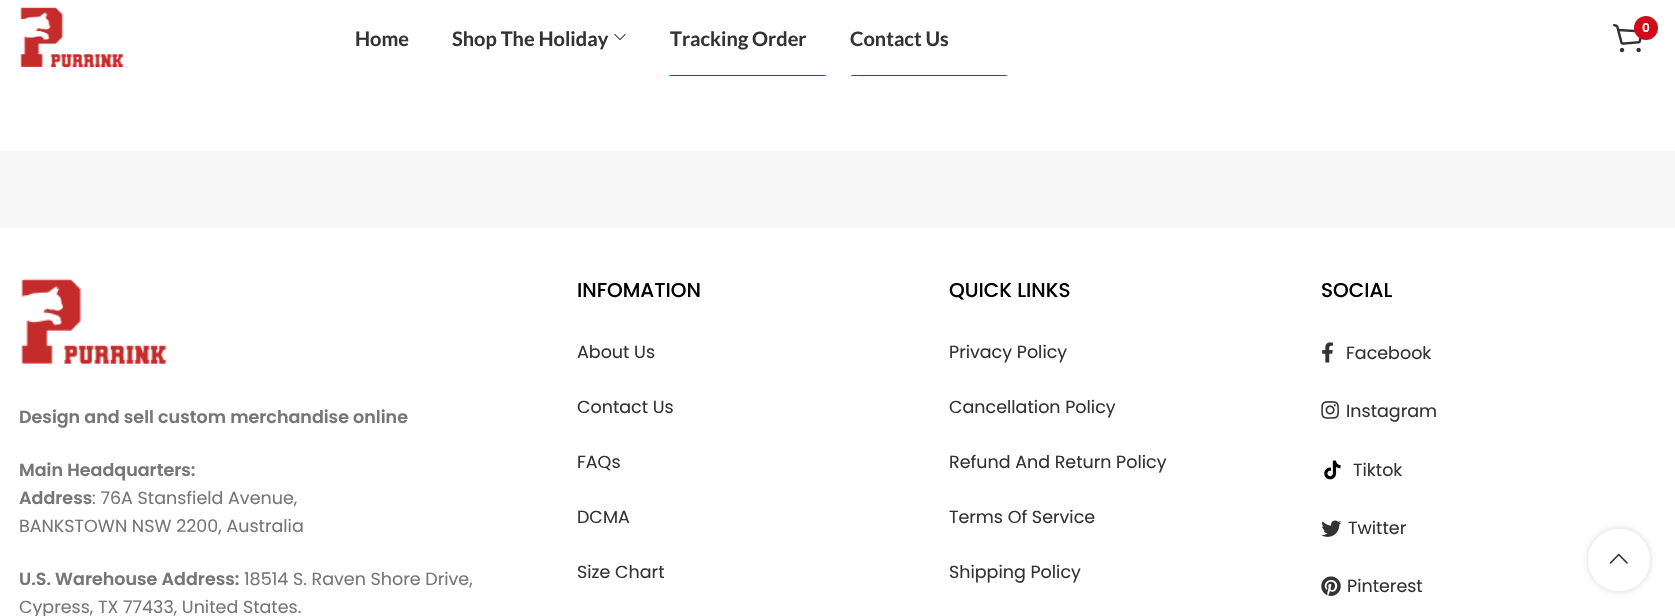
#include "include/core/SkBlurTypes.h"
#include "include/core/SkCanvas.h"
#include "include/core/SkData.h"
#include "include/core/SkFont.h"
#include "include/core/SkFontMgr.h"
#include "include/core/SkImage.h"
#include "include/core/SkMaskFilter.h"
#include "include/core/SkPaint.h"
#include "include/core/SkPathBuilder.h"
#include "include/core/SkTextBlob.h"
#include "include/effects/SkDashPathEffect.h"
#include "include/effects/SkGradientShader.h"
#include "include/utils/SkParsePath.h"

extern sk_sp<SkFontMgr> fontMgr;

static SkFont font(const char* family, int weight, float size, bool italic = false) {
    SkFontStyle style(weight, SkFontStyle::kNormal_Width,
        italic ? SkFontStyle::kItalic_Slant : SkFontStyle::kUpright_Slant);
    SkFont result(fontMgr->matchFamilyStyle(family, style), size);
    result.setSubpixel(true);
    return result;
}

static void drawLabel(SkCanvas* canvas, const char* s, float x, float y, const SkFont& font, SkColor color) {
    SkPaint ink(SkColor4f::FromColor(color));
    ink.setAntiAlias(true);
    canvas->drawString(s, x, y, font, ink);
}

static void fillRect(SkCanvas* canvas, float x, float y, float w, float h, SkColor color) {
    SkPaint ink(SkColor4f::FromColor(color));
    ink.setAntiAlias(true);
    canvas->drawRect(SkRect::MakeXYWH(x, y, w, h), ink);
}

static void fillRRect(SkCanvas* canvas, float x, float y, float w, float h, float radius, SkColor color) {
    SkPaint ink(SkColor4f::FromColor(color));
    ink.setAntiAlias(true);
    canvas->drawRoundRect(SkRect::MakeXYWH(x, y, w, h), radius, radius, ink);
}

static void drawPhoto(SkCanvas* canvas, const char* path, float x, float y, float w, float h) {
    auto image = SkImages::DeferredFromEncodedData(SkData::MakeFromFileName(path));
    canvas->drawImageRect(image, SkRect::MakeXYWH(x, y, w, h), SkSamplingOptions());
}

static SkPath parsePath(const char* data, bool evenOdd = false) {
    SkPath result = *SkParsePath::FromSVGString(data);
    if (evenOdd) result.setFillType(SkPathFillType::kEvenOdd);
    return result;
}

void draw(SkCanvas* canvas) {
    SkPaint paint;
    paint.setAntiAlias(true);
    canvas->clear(0xFFFFFFFF);
    fillRRect(canvas, 666, 24, 163, 52, 5, 0xFFCF0A1B);
    fillRRect(canvas, 848, 24, 162, 52, 5, 0xFFCF0A1B);
    fillRect(canvas, 666, 24, 344, 51, 0xFFFFFFFF);
    drawPhoto(canvas, "assets/img1.png", 20, 7, 104, 61);
    drawPhoto(canvas, "assets/img2.png", 1613, 23, 29, 30);
    paint.setColor(0xFFCF0A1B);
    canvas->drawCircle(1646, 28, 12, paint);
    SkFont font1 = font("Poppins", 600, 12);
    drawLabel(canvas, "0", 1642, 32, font1, 0xFFFFFFFF);
    SkFont font2 = font("Lato", 700, 20);
    drawLabel(canvas, "Home", 355, 46, font2, 0xFF333333);
    drawLabel(canvas, "Shop The Holiday", 452, 46, font2, 0xFF333333);
    drawPhoto(canvas, "assets/img3.png", 614, 33, 12, 8);
    drawLabel(canvas, "Tracking Order", 670, 46, font2, 0xFF333333);
    drawLabel(canvas, "Contact Us", 850, 46, font2, 0xFF333333);
    fillRect(canvas, 0, 151, 1675, 77, 0xFFF7F7F7);
    drawPhoto(canvas, "assets/img4.png", 21, 278, 146, 86);
    SkFont font3 = font("Poppins", 600, 17.5f);
    drawLabel(canvas, "Design and sell custom merchandise online", 19, 423, font3, 0xFF767676);
    drawLabel(canvas, "Main Headquarters:", 19, 476, font3, 0xFF767676);
    drawLabel(canvas, "Address", 19, 504, font3, 0xFF767676);
    SkFont font4 = font("Poppins", 400, 17.5f);
    drawLabel(canvas, ": 76A Stansfield Avenue,", 92, 504, font4, 0xFF767676);
    drawLabel(canvas, "BANKSTOWN NSW 2200, Australia", 19, 532, font4, 0xFF767676);
    drawLabel(canvas, "U.S. Warehouse Address:", 19, 585, font3, 0xFF767676);
    drawLabel(canvas, "18514 S. Raven Shore Drive,", 244, 585, font4, 0xFF767676);
    drawLabel(canvas, "Cypress, TX 77433, United States.", 19, 613, font4, 0xFF767676);
    SkFont font5 = font("Poppins", 500, 20);
    drawLabel(canvas, "INFOMATION", 577, 297, font5, 0xFF000000);
    drawLabel(canvas, "About Us", 577, 358, font4, 0xFF333333);
    drawLabel(canvas, "Contact Us", 577, 413, font4, 0xFF333333);
    drawLabel(canvas, "FAQs", 577, 468, font4, 0xFF333333);
    drawLabel(canvas, "DCMA", 577, 523, font4, 0xFF333333);
    drawLabel(canvas, "Size Chart", 577, 578, font4, 0xFF333333);
    drawLabel(canvas, "QUICK LINKS", 949, 297, font5, 0xFF000000);
    drawLabel(canvas, "Privacy Policy", 949, 358, font4, 0xFF333333);
    drawLabel(canvas, "Cancellation Policy", 949, 413, font4, 0xFF333333);
    drawLabel(canvas, "Refund And Return Policy", 949, 468, font4, 0xFF333333);
    drawLabel(canvas, "Terms Of Service", 949, 523, font4, 0xFF333333);
    drawLabel(canvas, "Shipping Policy", 949, 578, font4, 0xFF333333);
    drawLabel(canvas, "SOCIAL", 1321, 297, font5, 0xFF000000);
    drawPhoto(canvas, "assets/img5.png", 1322, 342, 11, 21);
    drawLabel(canvas, "Facebook", 1346, 359, font4, 0xFF333333);
    drawPhoto(canvas, "assets/img6.png", 1321, 401, 18, 18);
    drawLabel(canvas, "Instagram", 1346, 417, font4, 0xFF333333);
    drawPhoto(canvas, "assets/img7.png", 1324, 460, 17, 20);
    drawLabel(canvas, "Tiktok", 1353, 476, font4, 0xFF333333);
    drawPhoto(canvas, "assets/img8.png", 1321, 520, 21, 17);
    drawLabel(canvas, "Twitter", 1348, 534, font4, 0xFF333333);
    drawPhoto(canvas, "assets/img9.png", 1321, 576, 20, 20);
    drawLabel(canvas, "Pinterest", 1347, 592, font4, 0xFF333333);
    canvas->save();
    canvas->clipPath(parsePath("M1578 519H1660V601H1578ZM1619 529C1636 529 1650 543 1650 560C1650 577 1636 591 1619 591C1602 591 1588 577 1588 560C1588 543 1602 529 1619 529Z", true), true);
    paint.setColor(0x2B000000);
    paint.setMaskFilter(SkMaskFilter::MakeBlur(kNormal_SkBlurStyle, 3));
    canvas->drawRoundRect(SkRect::MakeXYWH(1588, 529, 62, 62), 31, 31, paint);
    paint.setMaskFilter(nullptr);
    canvas->restore();
    paint.setColor(0xE6FFFFFF);
    canvas->drawCircle(1619, 560, 31, paint);
    drawPhoto(canvas, "assets/img10.png", 1609, 553, 19, 11);
}
